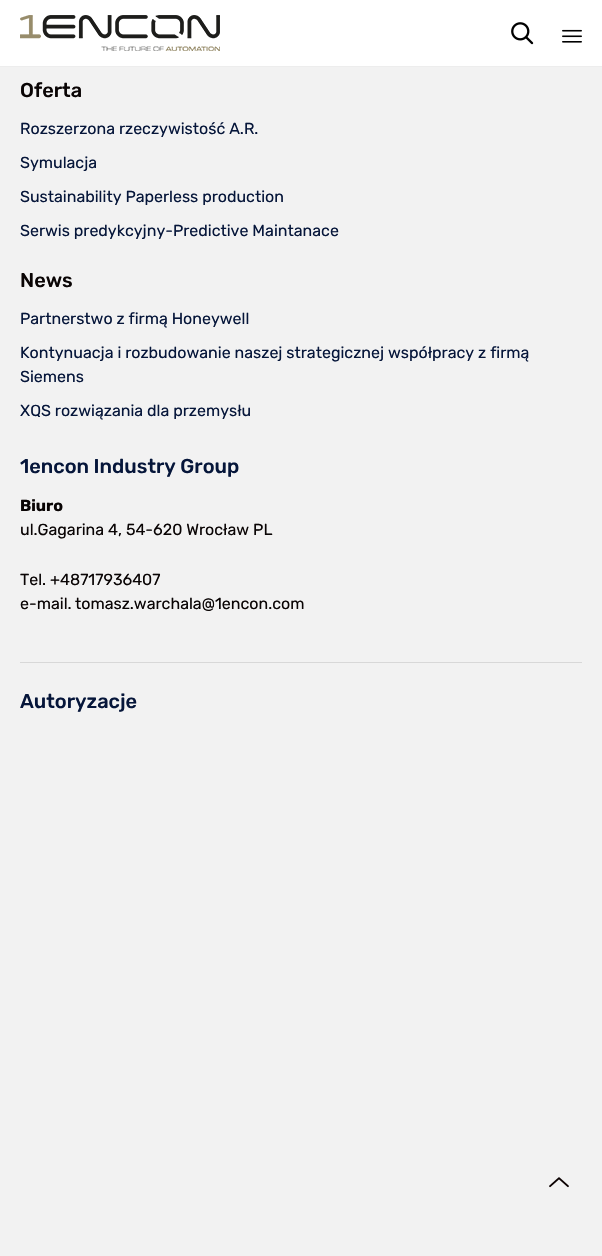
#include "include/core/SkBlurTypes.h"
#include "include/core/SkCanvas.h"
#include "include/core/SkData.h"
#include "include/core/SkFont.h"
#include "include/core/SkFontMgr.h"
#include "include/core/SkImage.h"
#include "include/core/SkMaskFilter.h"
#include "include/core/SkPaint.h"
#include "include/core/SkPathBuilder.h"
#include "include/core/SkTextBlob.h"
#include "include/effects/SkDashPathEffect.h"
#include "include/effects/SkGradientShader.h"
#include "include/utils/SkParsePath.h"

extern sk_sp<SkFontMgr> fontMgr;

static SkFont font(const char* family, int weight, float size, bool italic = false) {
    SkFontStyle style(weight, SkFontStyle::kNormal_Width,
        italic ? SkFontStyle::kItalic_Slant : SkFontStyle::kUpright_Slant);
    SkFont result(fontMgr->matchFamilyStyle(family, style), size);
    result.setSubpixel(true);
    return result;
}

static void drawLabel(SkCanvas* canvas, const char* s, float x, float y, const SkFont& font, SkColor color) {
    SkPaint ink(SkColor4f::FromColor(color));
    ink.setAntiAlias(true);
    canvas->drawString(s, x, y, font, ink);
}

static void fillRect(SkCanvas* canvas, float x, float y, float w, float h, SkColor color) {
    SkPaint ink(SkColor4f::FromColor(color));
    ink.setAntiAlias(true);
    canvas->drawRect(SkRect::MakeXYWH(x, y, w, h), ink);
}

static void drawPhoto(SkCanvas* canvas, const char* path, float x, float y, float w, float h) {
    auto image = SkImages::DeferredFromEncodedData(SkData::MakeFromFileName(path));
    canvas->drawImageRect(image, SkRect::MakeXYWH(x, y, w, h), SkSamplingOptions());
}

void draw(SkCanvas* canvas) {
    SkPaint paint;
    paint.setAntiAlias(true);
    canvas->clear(0xFFF2F2F2);
    fillRect(canvas, 0, 0, 602, 66, 0xFFFFFFFF);
    fillRect(canvas, 0, 66, 602, 1, 0xFFEDEDED);
    drawPhoto(canvas, "assets/img1.png", 20, 15, 200, 36);
    drawPhoto(canvas, "assets/img2.png", 511, 22, 23, 23);
    drawPhoto(canvas, "assets/img3.png", 562, 29, 20, 14);
    SkFont font1 = font("Rubik", 300, 20);
    drawLabel(canvas, "Oferta", 20, 97, font1, 0xFF0A0505);
    SkFont font2 = font("Rubik", 400, 16);
    drawLabel(canvas, "Rozszerzona rzeczywistość A.R.", 20, 134, font2, 0xFF06163A);
    drawLabel(canvas, "Symulacja", 20, 168, font2, 0xFF06163A);
    drawLabel(canvas, "Sustainability Paperless production", 20, 202, font2, 0xFF06163A);
    drawLabel(canvas, "Serwis predykcyjny-Predictive Maintanace", 20, 236, font2, 0xFF06163A);
    drawLabel(canvas, "News", 20, 287, font1, 0xFF0A0505);
    drawLabel(canvas, "Partnerstwo z firmą Honeywell", 20, 324, font2, 0xFF06163A);
    drawLabel(canvas, "Kontynuacja i rozbudowanie naszej strategicznej współpracy z firmą", 20, 358, font2, 0xFF06163A);
    drawLabel(canvas, "Siemens", 20, 382, font2, 0xFF06163A);
    drawLabel(canvas, "XQS rozwiązania dla przemysłu", 20, 416, font2, 0xFF06163A);
    drawLabel(canvas, "1encon Industry Group", 20, 473, font1, 0xFF06163A);
    SkFont font3 = font("Rubik", 700, 16);
    drawLabel(canvas, "Biuro", 20, 511, font3, 0xFF0A0505);
    drawLabel(canvas, "ul.Gagarina 4, 54-620 Wrocław PL", 20, 535, font2, 0xFF0A0505);
    drawLabel(canvas, "Tel. +48717936407", 20, 585, font2, 0xFF0A0505);
    drawLabel(canvas, "e-mail.", 20, 609, font2, 0xFF0A0505);
    drawLabel(canvas, "tomasz.warchala@1encon.com", 75, 609, font2, 0xFF0A0505);
    fillRect(canvas, 20, 662, 562, 1, 0xFFD8D8D8);
    drawLabel(canvas, "Autoryzacje", 20, 708, font1, 0xFF06163A);
    drawPhoto(canvas, "assets/img4.png", 549, 1177, 20, 11);
}
